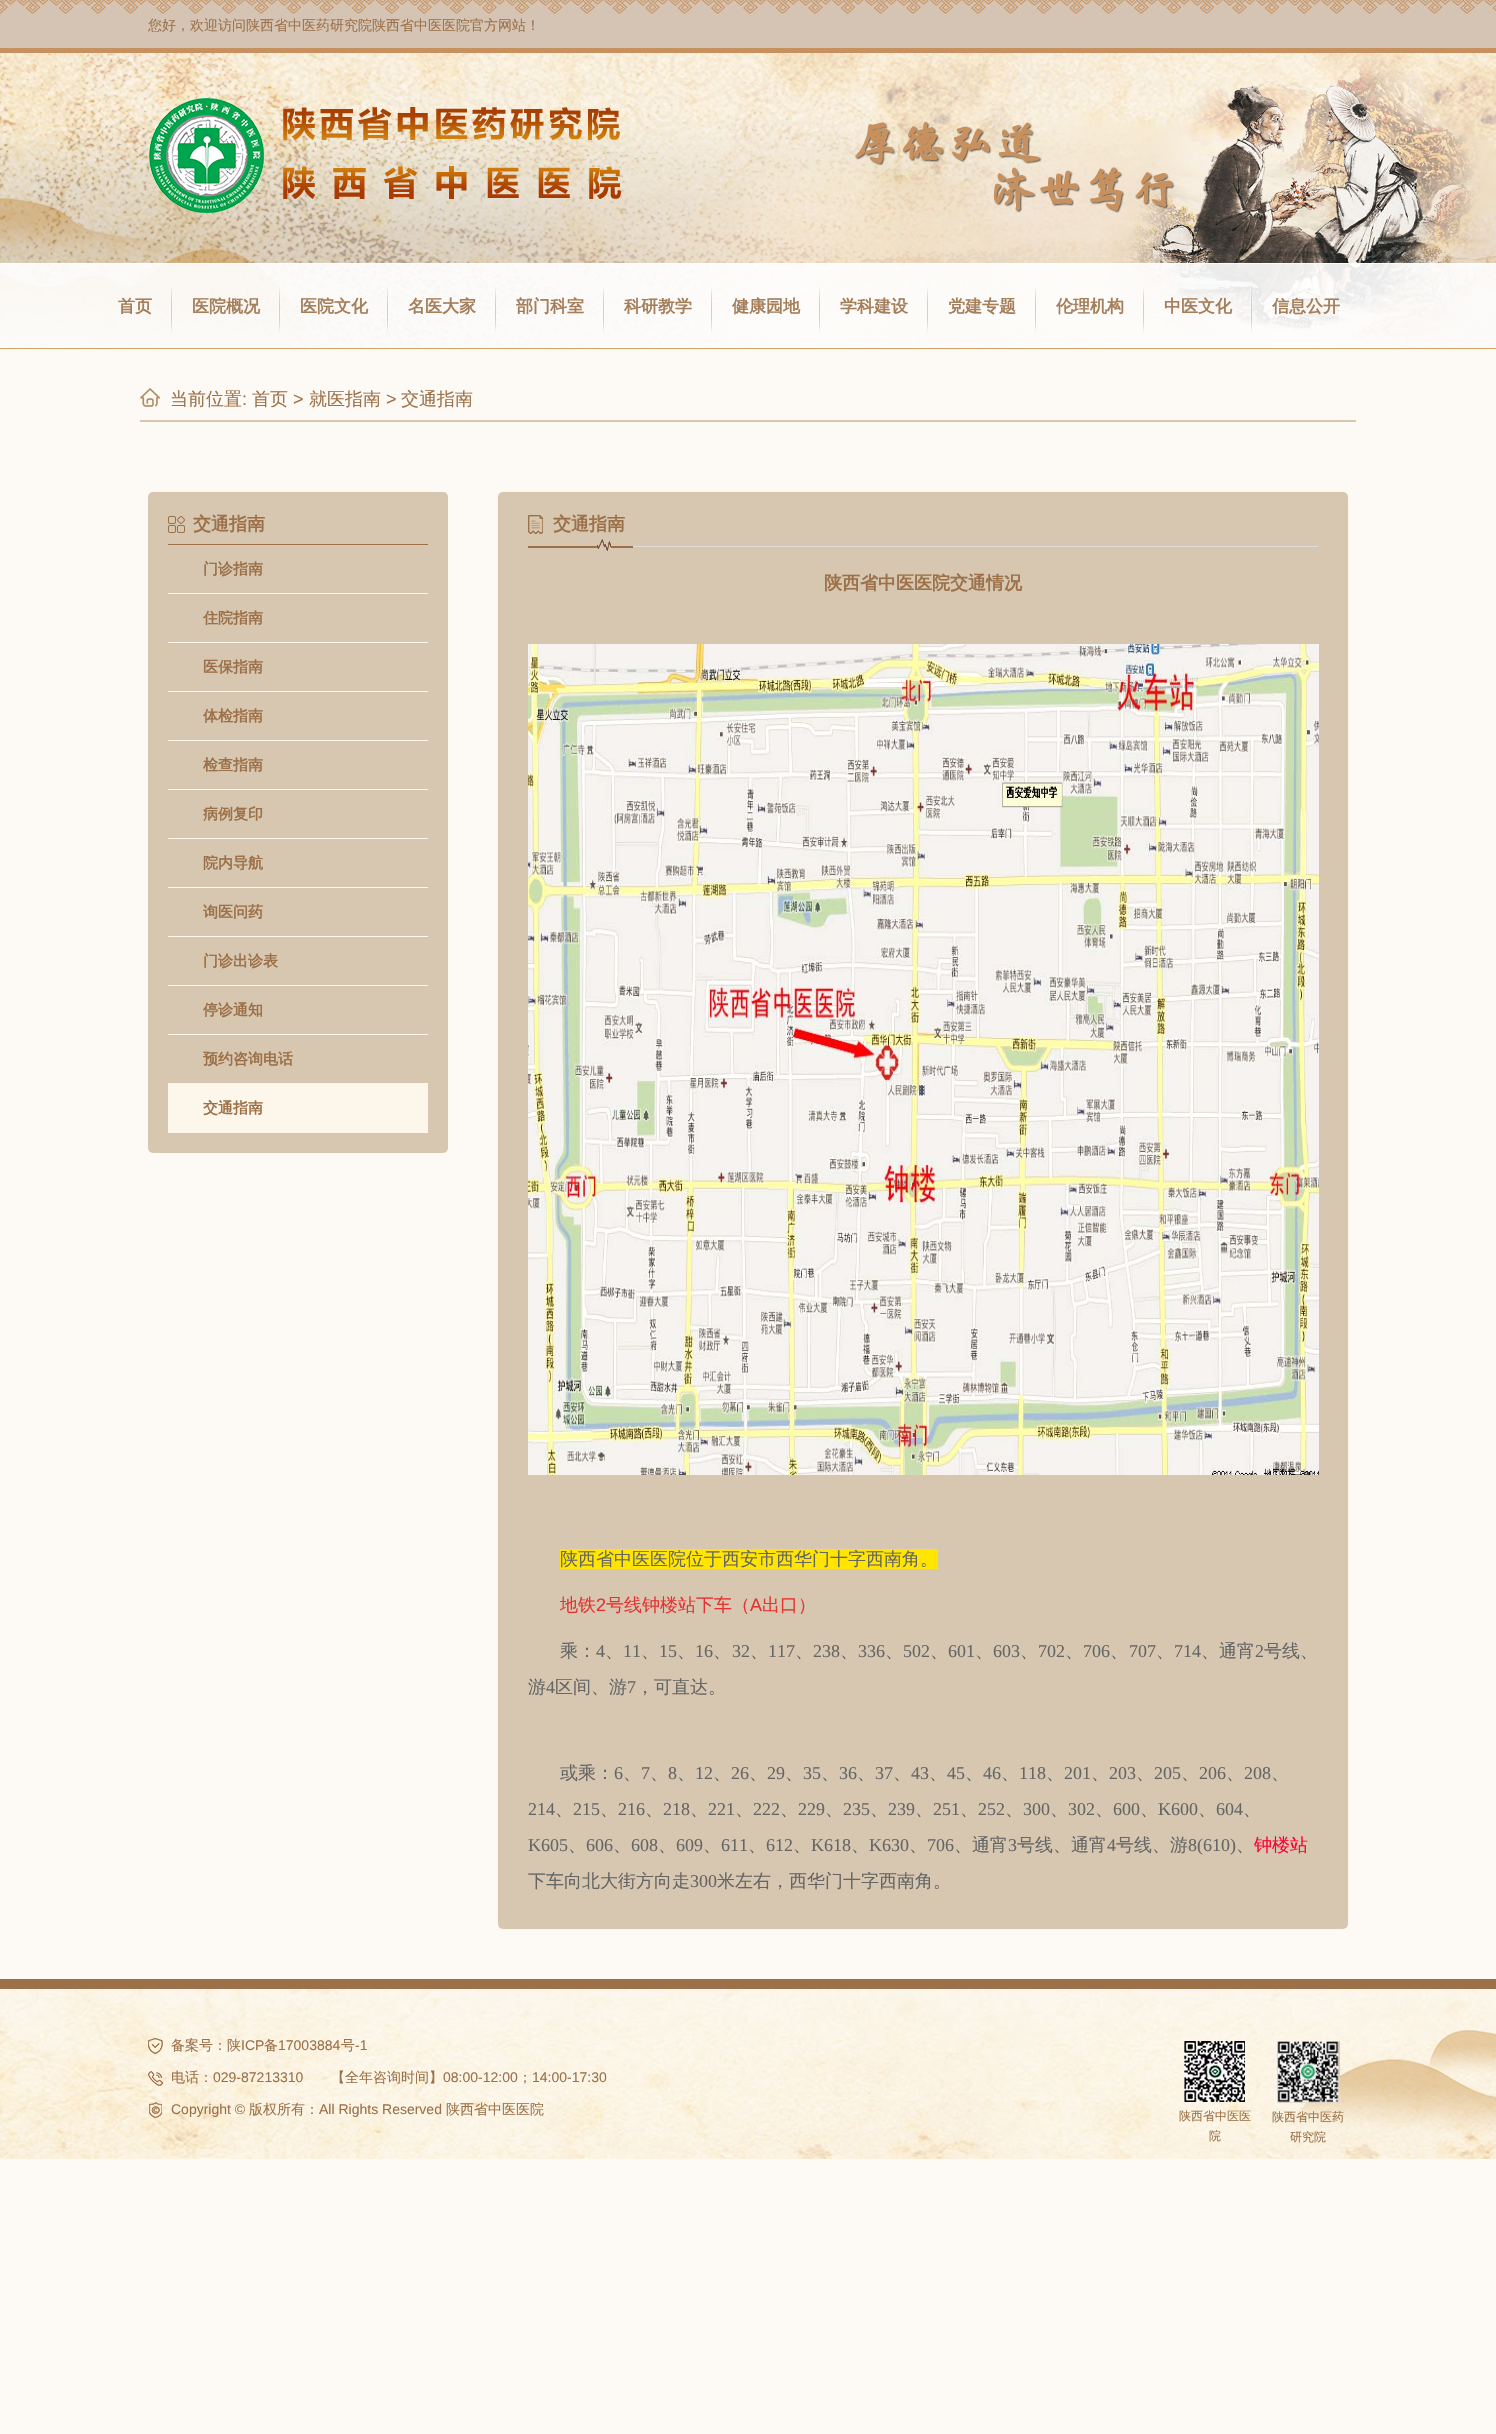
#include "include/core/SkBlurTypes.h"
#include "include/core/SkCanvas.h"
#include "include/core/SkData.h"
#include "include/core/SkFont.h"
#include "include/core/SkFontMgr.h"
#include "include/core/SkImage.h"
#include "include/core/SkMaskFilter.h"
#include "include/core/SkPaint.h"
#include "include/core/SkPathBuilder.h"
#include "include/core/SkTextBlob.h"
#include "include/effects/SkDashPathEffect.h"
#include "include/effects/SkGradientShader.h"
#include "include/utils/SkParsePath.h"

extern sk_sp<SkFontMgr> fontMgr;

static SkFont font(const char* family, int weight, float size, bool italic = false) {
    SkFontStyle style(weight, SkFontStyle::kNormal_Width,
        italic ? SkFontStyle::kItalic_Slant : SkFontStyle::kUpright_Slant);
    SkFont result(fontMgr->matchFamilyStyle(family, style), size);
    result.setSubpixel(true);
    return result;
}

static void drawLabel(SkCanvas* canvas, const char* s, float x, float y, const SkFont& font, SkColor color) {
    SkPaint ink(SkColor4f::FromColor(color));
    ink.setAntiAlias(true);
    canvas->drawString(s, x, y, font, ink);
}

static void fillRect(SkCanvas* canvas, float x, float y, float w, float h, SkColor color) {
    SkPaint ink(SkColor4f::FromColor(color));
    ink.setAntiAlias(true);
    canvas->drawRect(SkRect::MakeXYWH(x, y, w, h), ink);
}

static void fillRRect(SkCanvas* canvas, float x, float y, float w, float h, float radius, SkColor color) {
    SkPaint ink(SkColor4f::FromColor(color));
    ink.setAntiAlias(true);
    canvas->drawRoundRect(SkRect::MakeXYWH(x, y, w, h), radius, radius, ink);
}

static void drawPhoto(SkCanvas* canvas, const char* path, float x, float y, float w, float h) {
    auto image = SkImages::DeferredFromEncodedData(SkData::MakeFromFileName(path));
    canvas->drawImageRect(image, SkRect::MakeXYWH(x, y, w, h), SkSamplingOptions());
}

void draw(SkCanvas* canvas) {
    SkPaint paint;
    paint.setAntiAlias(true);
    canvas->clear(0xFFFDF9F4);
    drawPhoto(canvas, "assets/img1.png", 0, 0, 1496, 48);
    fillRect(canvas, 0, 48, 1496, 5, 0xFFC7915F);
    SkFont font1 = font("WenQuanYi Zen Hei", 500, 14);
    drawLabel(canvas, "您好，欢迎访问陕西省中医药研究院陕西省中医医院官方网站！", 148, 30, font1, 0xFF9C7149);
    drawPhoto(canvas, "assets/img2.png", 0, 53, 1496, 296);
    drawPhoto(canvas, "assets/img3.png", 149, 98, 473, 115);
    drawPhoto(canvas, "assets/img4.png", 855, 122, 320, 91);
    fillRect(canvas, 0, 263, 1496, 86, 0xE6FFFFFF);
    fillRect(canvas, 0, 263, 1496, 1, 0xE6FFFFFF);
    fillRect(canvas, 0, 348, 1496, 1, 0xE6D0985A);
    drawPhoto(canvas, "assets/img5.png", 170, 287, 2, 46);
    SkFont font2 = font("WenQuanYi Zen Hei", 700, 17);
    drawLabel(canvas, "首页", 118, 312, font2, 0xFFA57E5A);
    drawPhoto(canvas, "assets/img6.png", 278, 287, 2, 46);
    drawLabel(canvas, "医院概况", 192, 312, font2, 0xFFA57E5A);
    drawPhoto(canvas, "assets/img7.png", 386, 287, 2, 46);
    drawLabel(canvas, "医院文化", 300, 312, font2, 0xFFA57E5A);
    drawPhoto(canvas, "assets/img8.png", 495, 287, 1, 46);
    drawLabel(canvas, "名医大家", 408, 312, font2, 0xFFA57E5A);
    drawPhoto(canvas, "assets/img9.png", 603, 287, 1, 46);
    drawLabel(canvas, "部门科室", 516, 312, font2, 0xFFA57E5A);
    drawPhoto(canvas, "assets/img10.png", 711, 287, 1, 46);
    drawLabel(canvas, "科研教学", 624, 312, font2, 0xFFA57E5A);
    drawPhoto(canvas, "assets/img11.png", 819, 287, 1, 46);
    drawLabel(canvas, "健康园地", 732, 312, font2, 0xFFA57E5A);
    drawPhoto(canvas, "assets/img12.png", 927, 287, 1, 46);
    drawLabel(canvas, "学科建设", 840, 312, font2, 0xFFA57E5A);
    drawPhoto(canvas, "assets/img13.png", 1035, 287, 1, 46);
    drawLabel(canvas, "党建专题", 948, 312, font2, 0xFFA57E5A);
    drawPhoto(canvas, "assets/img14.png", 1143, 287, 1, 46);
    drawLabel(canvas, "伦理机构", 1056, 312, font2, 0xFFA57E5A);
    drawPhoto(canvas, "assets/img15.png", 1250, 286, 2, 47);
    drawLabel(canvas, "中医文化", 1164, 312, font2, 0xFFA57E5A);
    drawLabel(canvas, "信息公开", 1272, 312, font2, 0xFFA57E5A);
    drawPhoto(canvas, "assets/img16.png", 140, 388, 20, 19);
    fillRect(canvas, 140, 420, 1216, 2, 0xFFD7C7B0);
    SkFont font3 = font("WenQuanYi Zen Hei", 500, 18);
    drawLabel(canvas, "当前位置", 170, 405, font3, 0xFF9C7149);
    SkFont font4 = font("Liberation Sans", 400, 18);
    drawLabel(canvas, ":", 242, 405, font4, 0xFF9C7149);
    drawLabel(canvas, "首页", 252, 405, font3, 0xFF9C7149);
    drawLabel(canvas, ">", 293, 405, font4, 0xFF9C7149);
    drawLabel(canvas, "就医指南", 309, 405, font3, 0xFF9C7149);
    drawLabel(canvas, ">", 386, 405, font4, 0xFF9C7149);
    drawLabel(canvas, "交通指南", 401, 405, font3, 0xFF9C7149);
    fillRRect(canvas, 148, 492, 300, 661, 5, 0xFFD7C7B0);
    drawPhoto(canvas, "assets/img17.png", 168, 516, 17, 17);
    fillRect(canvas, 168, 544, 260, 1, 0xFF9C7149);
    SkFont font5 = font("WenQuanYi Zen Hei", 700, 18);
    drawLabel(canvas, "交通指南", 193, 530, font5, 0xFF9C7149);
    fillRect(canvas, 168, 593, 260, 1, 0xFFFDF7EB);
    SkFont font6 = font("WenQuanYi Zen Hei", 700, 15);
    drawLabel(canvas, "门诊指南", 203, 574, font6, 0xFF9C7149);
    fillRect(canvas, 168, 642, 260, 1, 0xFFFDF7EB);
    drawLabel(canvas, "住院指南", 203, 623, font6, 0xFF9C7149);
    fillRect(canvas, 168, 691, 260, 1, 0xFFFDF7EB);
    drawLabel(canvas, "医保指南", 203, 672, font6, 0xFF9C7149);
    fillRect(canvas, 168, 740, 260, 1, 0xFFFDF7EB);
    drawLabel(canvas, "体检指南", 203, 721, font6, 0xFF9C7149);
    fillRect(canvas, 168, 789, 260, 1, 0xFFFDF7EB);
    drawLabel(canvas, "检查指南", 203, 770, font6, 0xFF9C7149);
    fillRect(canvas, 168, 838, 260, 1, 0xFFFDF7EB);
    drawLabel(canvas, "病例复印", 203, 819, font6, 0xFF9C7149);
    fillRect(canvas, 168, 887, 260, 1, 0xFFFDF7EB);
    drawLabel(canvas, "院内导航", 203, 868, font6, 0xFF9C7149);
    fillRect(canvas, 168, 936, 260, 1, 0xFFFDF7EB);
    drawLabel(canvas, "询医问药", 203, 917, font6, 0xFF9C7149);
    fillRect(canvas, 168, 985, 260, 1, 0xFFFDF7EB);
    drawLabel(canvas, "门诊出诊表", 203, 966, font6, 0xFF9C7149);
    fillRect(canvas, 168, 1034, 260, 1, 0xFFFDF7EB);
    drawLabel(canvas, "停诊通知", 203, 1015, font6, 0xFF9C7149);
    fillRect(canvas, 168, 1083, 260, 50, 0xFFFDF7EB);
    drawLabel(canvas, "预约咨询电话", 203, 1064, font6, 0xFF9C7149);
    drawLabel(canvas, "交通指南", 203, 1113, font6, 0xFF9C7149);
    fillRRect(canvas, 498, 492, 850, 1437, 5, 0xFFD7C7B0);
    drawPhoto(canvas, "assets/img18.png", 528, 539, 790, 12);
    drawPhoto(canvas, "assets/img19.png", 528, 515, 15, 19);
    drawLabel(canvas, "交通指南", 553, 530, font5, 0xFF9C7149);
    drawLabel(canvas, "陕西省中医医院交通情况", 824, 589, font5, 0xFF9C7149);
    drawPhoto(canvas, "assets/img20.png", 528, 644, 791, 831);
    fillRect(canvas, 560, 1549, 378, 20, 0xFFFFE500);
    drawLabel(canvas, "陕西省中医医院位于西安市西华门十字西南角。", 560, 1565, font3, 0xFF666666);
    drawLabel(canvas, "地铁", 560, 1611, font3, 0xFFE53333);
    drawLabel(canvas, "2", 596, 1611, font4, 0xFFE53333);
    drawLabel(canvas, "号线钟楼站下车（", 606, 1611, font3, 0xFFE53333);
    drawLabel(canvas, "A", 750, 1611, font4, 0xFFE53333);
    drawLabel(canvas, "出口）", 762, 1611, font3, 0xFFE53333);
    drawLabel(canvas, "乘：", 560, 1657, font3, 0xFF666666);
    SkFont font7 = font("Liberation Serif", 400, 18);
    drawLabel(canvas, "4", 596, 1657, font7, 0xFF666666);
    drawLabel(canvas, "11", 623, 1657, font7, 0xFF666666);
    drawLabel(canvas, "15", 659, 1657, font7, 0xFF666666);
    drawLabel(canvas, "16", 695, 1657, font7, 0xFF666666);
    drawLabel(canvas, "32", 732, 1657, font7, 0xFF666666);
    drawLabel(canvas, "117", 768, 1657, font7, 0xFF666666);
    drawLabel(canvas, "238", 813, 1657, font7, 0xFF666666);
    drawLabel(canvas, "336", 858, 1657, font7, 0xFF666666);
    drawLabel(canvas, "502", 903, 1657, font7, 0xFF666666);
    drawLabel(canvas, "601", 948, 1657, font7, 0xFF666666);
    drawLabel(canvas, "603", 993, 1657, font7, 0xFF666666);
    drawLabel(canvas, "702", 1038, 1657, font7, 0xFF666666);
    drawLabel(canvas, "706", 1083, 1657, font7, 0xFF666666);
    drawLabel(canvas, "707", 1129, 1657, font7, 0xFF666666);
    drawLabel(canvas, "714", 1174, 1657, font7, 0xFF666666);
    drawLabel(canvas, "、通宵", 1201, 1657, font3, 0xFF666666);
    drawLabel(canvas, "2", 1255, 1657, font7, 0xFF666666);
    drawLabel(canvas, "号线、", 1264, 1657, font3, 0xFF666666);
    drawLabel(canvas, "、", 605, 1657, font3, 0xFF666666);
    drawLabel(canvas, "、", 641, 1657, font3, 0xFF666666);
    drawLabel(canvas, "、", 677, 1657, font3, 0xFF666666);
    drawLabel(canvas, "、", 713, 1657, font3, 0xFF666666);
    drawLabel(canvas, "、", 750, 1657, font3, 0xFF666666);
    drawLabel(canvas, "、", 795, 1657, font3, 0xFF666666);
    drawLabel(canvas, "、", 840, 1657, font3, 0xFF666666);
    drawLabel(canvas, "、", 885, 1657, font3, 0xFF666666);
    drawLabel(canvas, "、", 930, 1657, font3, 0xFF666666);
    drawLabel(canvas, "、", 975, 1657, font3, 0xFF666666);
    drawLabel(canvas, "、", 1020, 1657, font3, 0xFF666666);
    drawLabel(canvas, "、", 1065, 1657, font3, 0xFF666666);
    drawLabel(canvas, "、", 1110, 1657, font3, 0xFF666666);
    drawLabel(canvas, "、", 1156, 1657, font3, 0xFF666666);
    drawLabel(canvas, "游", 528, 1693, font3, 0xFF666666);
    drawLabel(canvas, "4", 546, 1693, font7, 0xFF666666);
    drawLabel(canvas, "区间、游", 555, 1693, font3, 0xFF666666);
    drawLabel(canvas, "7", 627, 1693, font7, 0xFF666666);
    drawLabel(canvas, "，可直达。", 636, 1693, font3, 0xFF666666);
    drawLabel(canvas, "或乘：", 560, 1779, font3, 0xFF666666);
    drawLabel(canvas, "6", 614, 1779, font7, 0xFF666666);
    drawLabel(canvas, "、", 623, 1779, font3, 0xFF666666);
    drawLabel(canvas, "7", 641, 1779, font7, 0xFF666666);
    drawLabel(canvas, "、", 650, 1779, font3, 0xFF666666);
    drawLabel(canvas, "8", 668, 1779, font7, 0xFF666666);
    drawLabel(canvas, "、", 677, 1779, font3, 0xFF666666);
    drawLabel(canvas, "12", 695, 1779, font7, 0xFF666666);
    drawLabel(canvas, "、", 713, 1779, font3, 0xFF666666);
    drawLabel(canvas, "26", 731, 1779, font7, 0xFF666666);
    drawLabel(canvas, "、", 749, 1779, font3, 0xFF666666);
    drawLabel(canvas, "29", 767, 1779, font7, 0xFF666666);
    drawLabel(canvas, "、", 785, 1779, font3, 0xFF666666);
    drawLabel(canvas, "35", 803, 1779, font7, 0xFF666666);
    drawLabel(canvas, "、", 821, 1779, font3, 0xFF666666);
    drawLabel(canvas, "36", 839, 1779, font7, 0xFF666666);
    drawLabel(canvas, "、", 857, 1779, font3, 0xFF666666);
    drawLabel(canvas, "37", 875, 1779, font7, 0xFF666666);
    drawLabel(canvas, "、", 893, 1779, font3, 0xFF666666);
    drawLabel(canvas, "43", 911, 1779, font7, 0xFF666666);
    drawLabel(canvas, "、", 929, 1779, font3, 0xFF666666);
    drawLabel(canvas, "45", 947, 1779, font7, 0xFF666666);
    drawLabel(canvas, "、", 965, 1779, font3, 0xFF666666);
    drawLabel(canvas, "46", 983, 1779, font7, 0xFF666666);
    drawLabel(canvas, "、", 1001, 1779, font3, 0xFF666666);
    drawLabel(canvas, "118", 1019, 1779, font7, 0xFF666666);
    drawLabel(canvas, "、", 1046, 1779, font3, 0xFF666666);
    drawLabel(canvas, "201", 1064, 1779, font7, 0xFF666666);
    drawLabel(canvas, "、", 1091, 1779, font3, 0xFF666666);
    drawLabel(canvas, "203", 1109, 1779, font7, 0xFF666666);
    drawLabel(canvas, "、", 1136, 1779, font3, 0xFF666666);
    drawLabel(canvas, "205", 1154, 1779, font7, 0xFF666666);
    drawLabel(canvas, "、", 1181, 1779, font3, 0xFF666666);
    drawLabel(canvas, "206", 1199, 1779, font7, 0xFF666666);
    drawLabel(canvas, "、", 1226, 1779, font3, 0xFF666666);
    drawLabel(canvas, "208", 1244, 1779, font7, 0xFF666666);
    drawLabel(canvas, "、", 1271, 1779, font3, 0xFF666666);
    drawLabel(canvas, "214", 528, 1815, font7, 0xFF666666);
    drawLabel(canvas, "、", 555, 1815, font3, 0xFF666666);
    drawLabel(canvas, "215", 573, 1815, font7, 0xFF666666);
    drawLabel(canvas, "、", 600, 1815, font3, 0xFF666666);
    drawLabel(canvas, "216", 618, 1815, font7, 0xFF666666);
    drawLabel(canvas, "、", 645, 1815, font3, 0xFF666666);
    drawLabel(canvas, "218", 663, 1815, font7, 0xFF666666);
    drawLabel(canvas, "、", 690, 1815, font3, 0xFF666666);
    drawLabel(canvas, "221", 708, 1815, font7, 0xFF666666);
    drawLabel(canvas, "、", 735, 1815, font3, 0xFF666666);
    drawLabel(canvas, "222", 753, 1815, font7, 0xFF666666);
    drawLabel(canvas, "、", 780, 1815, font3, 0xFF666666);
    drawLabel(canvas, "229", 798, 1815, font7, 0xFF666666);
    drawLabel(canvas, "、", 825, 1815, font3, 0xFF666666);
    drawLabel(canvas, "235", 843, 1815, font7, 0xFF666666);
    drawLabel(canvas, "、", 870, 1815, font3, 0xFF666666);
    drawLabel(canvas, "239", 888, 1815, font7, 0xFF666666);
    drawLabel(canvas, "、", 915, 1815, font3, 0xFF666666);
    drawLabel(canvas, "251", 933, 1815, font7, 0xFF666666);
    drawLabel(canvas, "、", 960, 1815, font3, 0xFF666666);
    drawLabel(canvas, "252", 978, 1815, font7, 0xFF666666);
    drawLabel(canvas, "、", 1005, 1815, font3, 0xFF666666);
    drawLabel(canvas, "300", 1023, 1815, font7, 0xFF666666);
    drawLabel(canvas, "、", 1050, 1815, font3, 0xFF666666);
    drawLabel(canvas, "302", 1068, 1815, font7, 0xFF666666);
    drawLabel(canvas, "、", 1095, 1815, font3, 0xFF666666);
    drawLabel(canvas, "600", 1113, 1815, font7, 0xFF666666);
    drawLabel(canvas, "、", 1140, 1815, font3, 0xFF666666);
    drawLabel(canvas, "K600", 1158, 1815, font7, 0xFF666666);
    drawLabel(canvas, "、", 1198, 1815, font3, 0xFF666666);
    drawLabel(canvas, "604", 1216, 1815, font7, 0xFF666666);
    drawLabel(canvas, "、", 1243, 1815, font3, 0xFF666666);
    drawLabel(canvas, "K605", 528, 1851, font7, 0xFF666666);
    drawLabel(canvas, "606", 586, 1851, font7, 0xFF666666);
    drawLabel(canvas, "608", 631, 1851, font7, 0xFF666666);
    drawLabel(canvas, "609", 676, 1851, font7, 0xFF666666);
    drawLabel(canvas, "611", 721, 1851, font7, 0xFF666666);
    drawLabel(canvas, "612", 766, 1851, font7, 0xFF666666);
    drawLabel(canvas, "K618", 811, 1851, font7, 0xFF666666);
    drawLabel(canvas, "K630", 869, 1851, font7, 0xFF666666);
    drawLabel(canvas, "706", 927, 1851, font7, 0xFF666666);
    drawLabel(canvas, "、通宵", 954, 1851, font3, 0xFF666666);
    drawLabel(canvas, "3", 1008, 1851, font7, 0xFF666666);
    drawLabel(canvas, "号线、通宵", 1017, 1851, font3, 0xFF666666);
    drawLabel(canvas, "4", 1107, 1851, font7, 0xFF666666);
    drawLabel(canvas, "号线、游", 1116, 1851, font3, 0xFF666666);
    drawLabel(canvas, "8(610)", 1188, 1851, font7, 0xFF666666);
    drawLabel(canvas, "钟楼站", 1254, 1851, font3, 0xFFFF0033);
    drawLabel(canvas, "、", 568, 1851, font3, 0xFF666666);
    drawLabel(canvas, "、", 613, 1851, font3, 0xFF666666);
    drawLabel(canvas, "、", 658, 1851, font3, 0xFF666666);
    drawLabel(canvas, "、", 703, 1851, font3, 0xFF666666);
    drawLabel(canvas, "、", 748, 1851, font3, 0xFF666666);
    drawLabel(canvas, "、", 793, 1851, font3, 0xFF666666);
    drawLabel(canvas, "、", 851, 1851, font3, 0xFF666666);
    drawLabel(canvas, "、", 909, 1851, font3, 0xFF666666);
    drawLabel(canvas, "、", 1236, 1851, font3, 0xFF666666);
    drawLabel(canvas, "下车向北大街方向走", 528, 1887, font3, 0xFF666666);
    drawLabel(canvas, "300", 690, 1887, font7, 0xFF666666);
    drawLabel(canvas, "米左右，西华门十字西南角。", 717, 1887, font3, 0xFF666666);
    drawPhoto(canvas, "assets/img21.png", 0, 1989, 1496, 170);
    fillRect(canvas, 0, 1979, 1496, 10, 0xFF9C7149);
    drawPhoto(canvas, "assets/img22.png", 148, 2038, 15, 16);
    drawLabel(canvas, "备案号：陕", 171, 2050, font1, 0xFF9C7149);
    SkFont font8 = font("Liberation Sans", 400, 14);
    drawLabel(canvas, "ICP", 241, 2050, font8, 0xFF9C7149);
    drawLabel(canvas, "备", 264, 2050, font1, 0xFF9C7149);
    drawLabel(canvas, "17003884", 278, 2050, font8, 0xFF9C7149);
    drawLabel(canvas, "号", 341, 2050, font1, 0xFF9C7149);
    drawLabel(canvas, "-1", 355, 2050, font8, 0xFF9C7149);
    drawPhoto(canvas, "assets/img23.png", 148, 2070, 15, 16);
    drawLabel(canvas, "电话：", 171, 2082, font1, 0xFF9C7149);
    drawLabel(canvas, "029-87213310", 213, 2082, font8, 0xFF9C7149);
    drawLabel(canvas, "【全年咨询时间】", 331, 2082, font1, 0xFF9C7149);
    drawLabel(canvas, "08:00-12:00", 443, 2082, font8, 0xFF9C7149);
    drawLabel(canvas, "；", 518, 2082, font1, 0xFF9C7149);
    drawLabel(canvas, "14:00-17:30", 532, 2082, font8, 0xFF9C7149);
    drawPhoto(canvas, "assets/img24.png", 148, 2102, 15, 16);
    drawLabel(canvas, "Copyright ©", 171, 2114, font8, 0xFF9C7149);
    drawLabel(canvas, "版权所有：", 249, 2114, font1, 0xFF9C7149);
    drawLabel(canvas, "All Rights Reserved", 319, 2114, font8, 0xFF9C7149);
    drawLabel(canvas, "陕西省中医医院", 446, 2114, font1, 0xFF9C7149);
    drawPhoto(canvas, "assets/img25.png", 1184, 2041, 61, 61);
    SkFont font9 = font("WenQuanYi Zen Hei", 500, 12);
    drawLabel(canvas, "陕西省中医医", 1179, 2120, font9, 0xFF9C7149);
    drawLabel(canvas, "院", 1209, 2140, font9, 0xFF9C7149);
    drawPhoto(canvas, "assets/img26.png", 1277, 2041, 63, 62);
    drawLabel(canvas, "陕西省中医药", 1272, 2121, font9, 0xFF9C7149);
    drawLabel(canvas, "研究院", 1290, 2141, font9, 0xFF9C7149);
}
